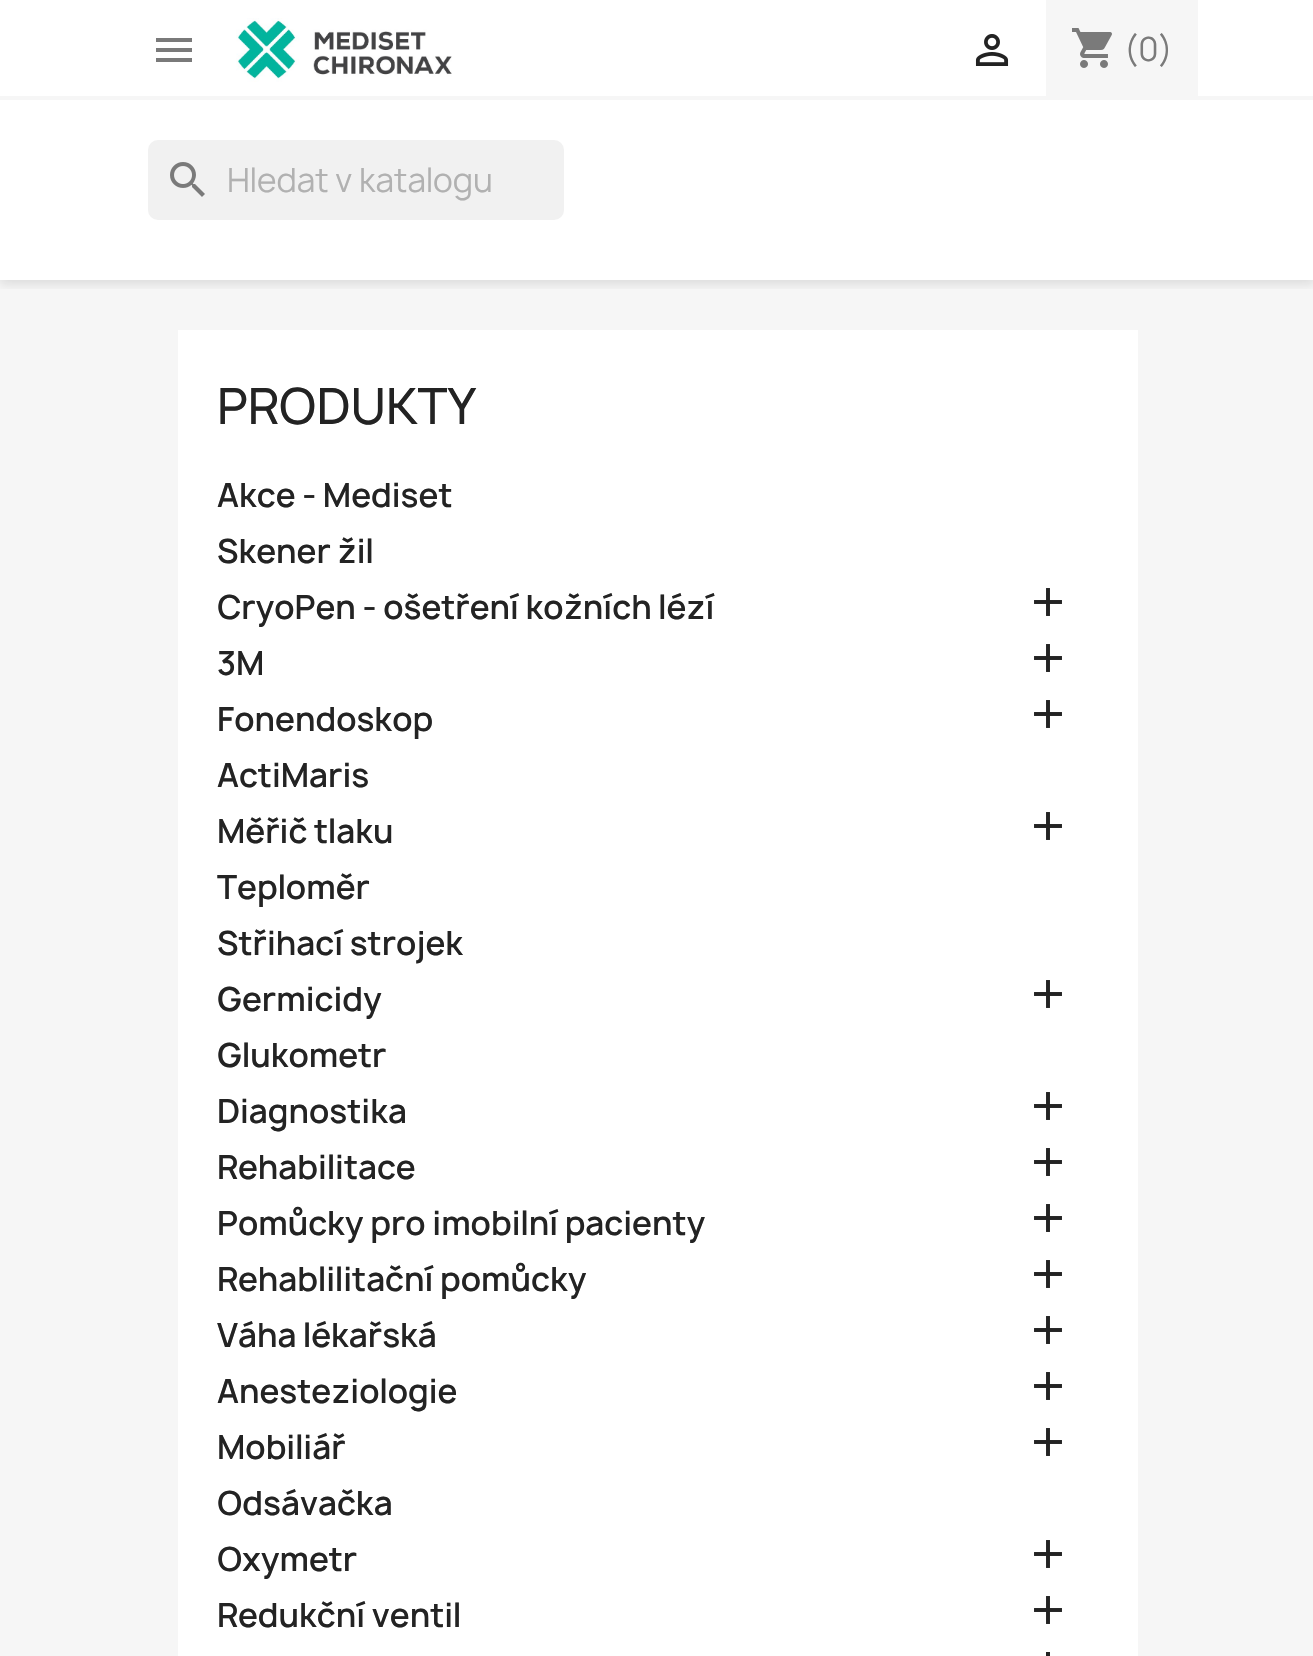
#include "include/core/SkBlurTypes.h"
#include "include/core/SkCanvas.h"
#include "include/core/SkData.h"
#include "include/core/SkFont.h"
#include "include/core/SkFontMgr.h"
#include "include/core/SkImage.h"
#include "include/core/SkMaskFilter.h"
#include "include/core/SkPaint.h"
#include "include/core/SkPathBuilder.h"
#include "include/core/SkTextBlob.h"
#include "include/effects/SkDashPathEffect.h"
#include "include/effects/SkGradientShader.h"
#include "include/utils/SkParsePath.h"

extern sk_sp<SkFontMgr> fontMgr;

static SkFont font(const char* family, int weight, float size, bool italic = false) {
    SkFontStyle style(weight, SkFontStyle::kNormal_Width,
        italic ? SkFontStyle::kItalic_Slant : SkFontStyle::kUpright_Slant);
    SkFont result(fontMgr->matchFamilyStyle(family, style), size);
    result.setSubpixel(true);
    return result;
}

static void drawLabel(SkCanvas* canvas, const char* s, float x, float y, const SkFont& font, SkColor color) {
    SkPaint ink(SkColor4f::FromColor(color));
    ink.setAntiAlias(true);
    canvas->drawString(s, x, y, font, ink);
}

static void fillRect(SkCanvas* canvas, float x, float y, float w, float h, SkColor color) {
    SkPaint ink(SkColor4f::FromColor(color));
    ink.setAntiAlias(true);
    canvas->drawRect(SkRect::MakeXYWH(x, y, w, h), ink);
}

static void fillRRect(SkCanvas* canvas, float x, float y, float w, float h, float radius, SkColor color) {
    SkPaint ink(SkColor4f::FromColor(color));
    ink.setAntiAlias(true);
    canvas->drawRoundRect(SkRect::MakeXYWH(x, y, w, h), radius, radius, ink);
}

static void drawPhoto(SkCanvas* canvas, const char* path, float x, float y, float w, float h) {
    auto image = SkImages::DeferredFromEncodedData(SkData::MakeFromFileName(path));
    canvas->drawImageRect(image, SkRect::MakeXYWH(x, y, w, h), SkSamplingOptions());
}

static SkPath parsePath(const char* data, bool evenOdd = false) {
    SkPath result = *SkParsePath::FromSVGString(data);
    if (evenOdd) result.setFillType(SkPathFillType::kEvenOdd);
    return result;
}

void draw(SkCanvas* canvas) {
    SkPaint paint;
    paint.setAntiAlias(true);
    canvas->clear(0xFFFFFFFF);
    fillRect(canvas, 0, 280, 1313, 1376, 0xFFF6F6F6);
    canvas->save();
    canvas->clipRect(SkRect::MakeXYWH(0, 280, 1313, 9));
    paint.setColor(0x1C000000);
    paint.setMaskFilter(SkMaskFilter::MakeBlur(kNormal_SkBlurStyle, 5));
    canvas->drawRect(SkRect::MakeXYWH(0, 4, 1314, 280), paint);
    paint.setMaskFilter(nullptr);
    canvas->restore();
    fillRect(canvas, 0, 96, 1313, 4, 0xFFF6F6F6);
    paint.setColor(0xFF7A7A7A);
    canvas->drawPath(parsePath("M156 38H192V42H156ZM156 52V48H192V52ZM156 62V58H192V62Z"), paint);
    drawPhoto(canvas, "assets/img1.png", 236, 18, 216, 64);
    drawPhoto(canvas, "assets/img2.png", 975, 34, 34, 32);
    fillRect(canvas, 1046, 0, 152, 96, 0xFFF6F6F6);
    drawPhoto(canvas, "assets/img3.png", 1072, 28, 40, 40);
    SkFont font1 = font("Manrope", 400, 32);
    drawLabel(canvas, "(0)", 1124, 61, font1, 0xFF7A7A7A);
    fillRRect(canvas, 148, 140, 416, 80, 10, 0xFFF1F1F1);
    drawPhoto(canvas, "assets/img4.png", 170, 162, 35, 35);
    drawLabel(canvas, "Hledat v katalogu", 227, 192, font1, 0xFFB1B1B1);
    fillRect(canvas, 178, 330, 960, 1326, 0xFFFFFFFF);
    SkFont font2 = font("Manrope", 500, 48);
    drawLabel(canvas, "PRODUKTY", 217, 424, font2, 0xFF232323);
    SkFont font3 = font("Manrope", 600, 32);
    drawLabel(canvas, "Akce - Mediset", 217, 507, font3, 0xFF232323);
    drawLabel(canvas, "Skener žil", 217, 563, font3, 0xFF232323);
    drawLabel(canvas, "CryoPen - ošetření kožních lézí", 217, 619, font3, 0xFF232323);
    drawPhoto(canvas, "assets/img5.png", 1034, 588, 28, 28);
    drawLabel(canvas, "3M", 217, 675, font3, 0xFF232323);
    drawPhoto(canvas, "assets/img5.png", 1034, 644, 28, 28);
    drawLabel(canvas, "Fonendoskop", 217, 731, font3, 0xFF232323);
    drawPhoto(canvas, "assets/img5.png", 1034, 700, 28, 28);
    drawLabel(canvas, "ActiMaris", 217, 787, font3, 0xFF232323);
    drawLabel(canvas, "Měřič tlaku", 217, 843, font3, 0xFF232323);
    drawPhoto(canvas, "assets/img5.png", 1034, 812, 28, 28);
    drawLabel(canvas, "Teploměr", 217, 899, font3, 0xFF232323);
    drawLabel(canvas, "Střihací strojek", 217, 955, font3, 0xFF232323);
    drawLabel(canvas, "Germicidy", 217, 1011, font3, 0xFF232323);
    drawPhoto(canvas, "assets/img5.png", 1034, 980, 28, 28);
    drawLabel(canvas, "Glukometr", 217, 1067, font3, 0xFF232323);
    drawLabel(canvas, "Diagnostika", 217, 1123, font3, 0xFF232323);
    drawPhoto(canvas, "assets/img5.png", 1034, 1092, 28, 28);
    drawLabel(canvas, "Rehabilitace", 217, 1179, font3, 0xFF232323);
    drawPhoto(canvas, "assets/img5.png", 1034, 1148, 28, 28);
    drawLabel(canvas, "Pomůcky pro imobilní pacienty", 217, 1235, font3, 0xFF232323);
    drawPhoto(canvas, "assets/img5.png", 1034, 1204, 28, 28);
    drawLabel(canvas, "Rehablilitační pomůcky", 217, 1291, font3, 0xFF232323);
    drawPhoto(canvas, "assets/img5.png", 1034, 1260, 28, 28);
    drawLabel(canvas, "Váha lékařská", 217, 1347, font3, 0xFF232323);
    drawPhoto(canvas, "assets/img5.png", 1034, 1316, 28, 28);
    drawLabel(canvas, "Anesteziologie", 217, 1403, font3, 0xFF232323);
    drawPhoto(canvas, "assets/img5.png", 1034, 1372, 28, 28);
    drawLabel(canvas, "Mobiliář", 217, 1459, font3, 0xFF232323);
    drawPhoto(canvas, "assets/img5.png", 1034, 1428, 28, 28);
    drawLabel(canvas, "Odsávačka", 217, 1515, font3, 0xFF232323);
    drawLabel(canvas, "Oxymetr", 217, 1571, font3, 0xFF232323);
    drawPhoto(canvas, "assets/img5.png", 1034, 1540, 28, 28);
    drawLabel(canvas, "Redukční ventil", 217, 1627, font3, 0xFF232323);
    drawPhoto(canvas, "assets/img5.png", 1034, 1596, 28, 28);
    fillRect(canvas, 1046, 1652, 4, 4, 0xFF232323);
}
